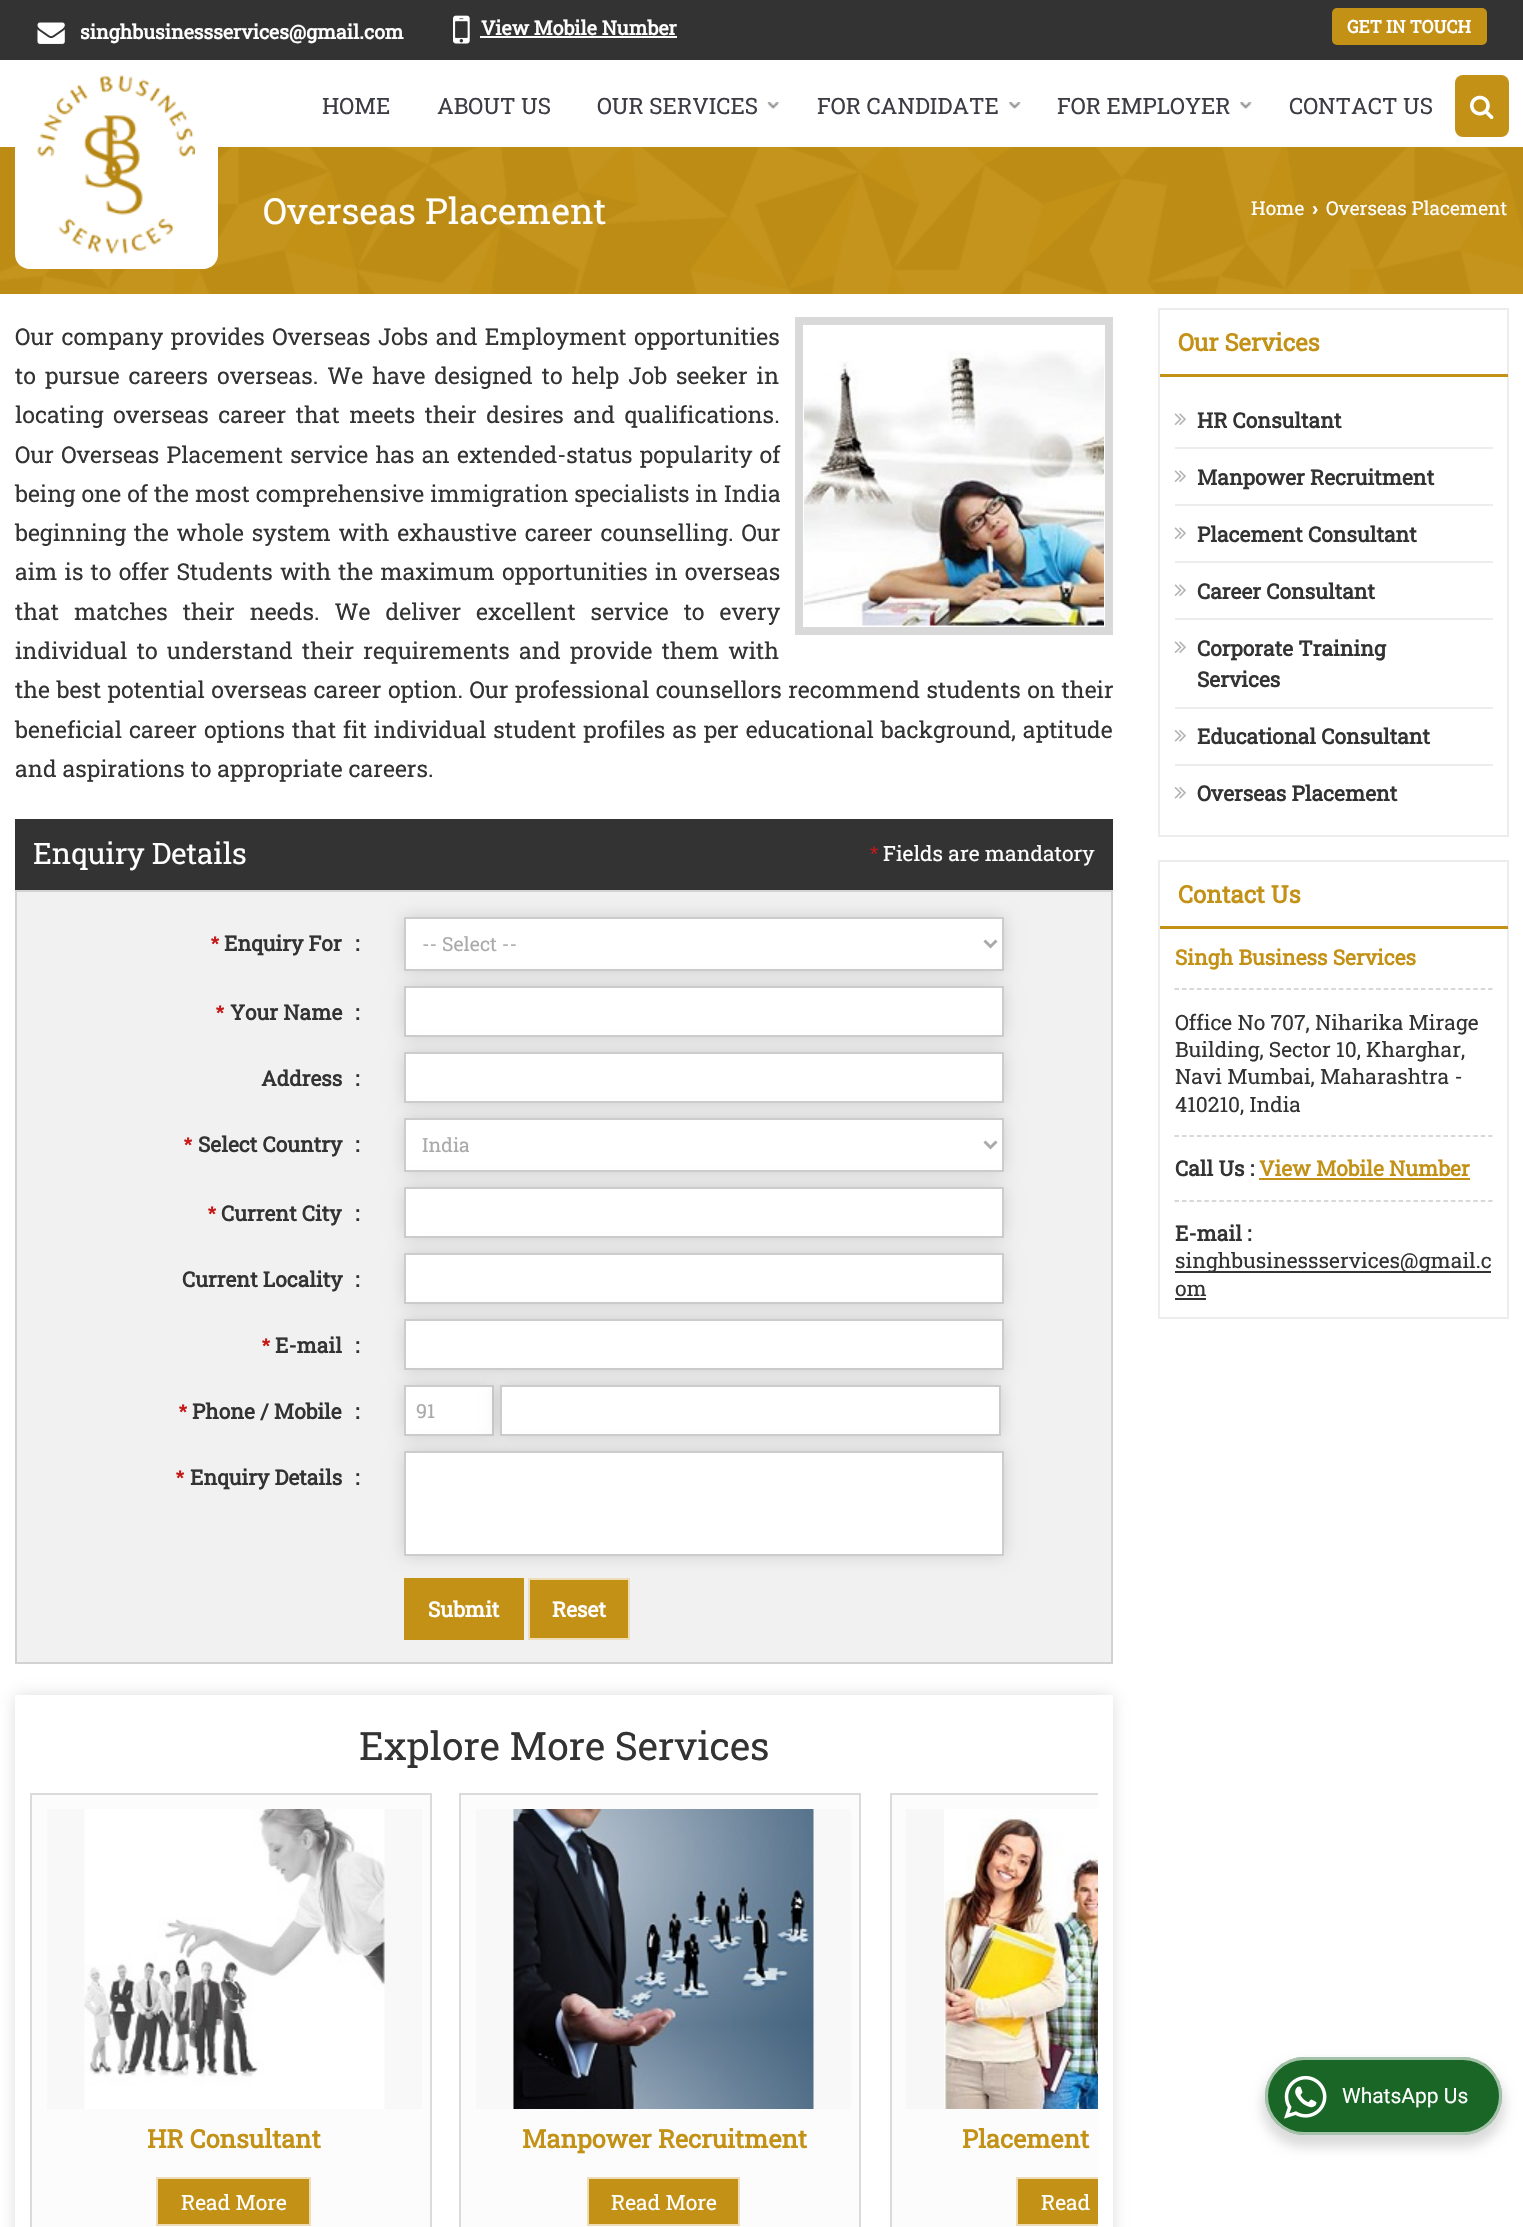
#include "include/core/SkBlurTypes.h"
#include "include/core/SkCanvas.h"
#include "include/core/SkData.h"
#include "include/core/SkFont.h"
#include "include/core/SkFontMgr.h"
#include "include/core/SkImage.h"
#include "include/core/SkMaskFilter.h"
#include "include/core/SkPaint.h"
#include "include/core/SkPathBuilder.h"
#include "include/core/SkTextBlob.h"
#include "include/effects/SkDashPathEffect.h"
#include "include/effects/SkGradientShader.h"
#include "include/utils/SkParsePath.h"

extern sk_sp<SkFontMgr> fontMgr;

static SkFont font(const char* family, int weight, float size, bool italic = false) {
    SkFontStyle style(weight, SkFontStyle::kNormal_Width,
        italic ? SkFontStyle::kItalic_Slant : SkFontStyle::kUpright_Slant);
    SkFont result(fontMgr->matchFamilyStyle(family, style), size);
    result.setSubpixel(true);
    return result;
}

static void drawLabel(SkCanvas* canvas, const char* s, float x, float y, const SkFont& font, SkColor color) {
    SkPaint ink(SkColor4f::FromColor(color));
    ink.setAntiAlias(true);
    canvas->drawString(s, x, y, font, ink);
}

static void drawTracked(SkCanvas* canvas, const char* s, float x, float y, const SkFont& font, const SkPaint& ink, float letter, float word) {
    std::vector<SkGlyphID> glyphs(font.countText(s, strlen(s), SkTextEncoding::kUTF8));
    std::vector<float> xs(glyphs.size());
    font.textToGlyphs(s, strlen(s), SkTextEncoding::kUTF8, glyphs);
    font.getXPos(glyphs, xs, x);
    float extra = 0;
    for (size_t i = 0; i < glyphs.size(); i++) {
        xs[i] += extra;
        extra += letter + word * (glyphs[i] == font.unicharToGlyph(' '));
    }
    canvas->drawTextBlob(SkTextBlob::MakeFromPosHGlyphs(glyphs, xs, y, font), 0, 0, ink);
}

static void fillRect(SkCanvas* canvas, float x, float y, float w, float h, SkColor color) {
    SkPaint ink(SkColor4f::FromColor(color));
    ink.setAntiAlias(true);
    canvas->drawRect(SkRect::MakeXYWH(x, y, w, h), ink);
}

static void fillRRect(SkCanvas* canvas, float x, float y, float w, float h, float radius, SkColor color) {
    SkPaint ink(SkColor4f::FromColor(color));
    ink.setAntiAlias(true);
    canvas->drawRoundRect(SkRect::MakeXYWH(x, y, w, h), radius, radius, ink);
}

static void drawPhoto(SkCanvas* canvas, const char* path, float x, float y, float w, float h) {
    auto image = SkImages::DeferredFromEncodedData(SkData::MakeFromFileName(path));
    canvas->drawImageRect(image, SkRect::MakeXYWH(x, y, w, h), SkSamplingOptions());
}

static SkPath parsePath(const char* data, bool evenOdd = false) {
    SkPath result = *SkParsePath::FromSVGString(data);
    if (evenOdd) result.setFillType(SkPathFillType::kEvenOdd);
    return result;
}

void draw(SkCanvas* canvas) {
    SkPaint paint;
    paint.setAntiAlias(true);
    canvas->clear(0xFFFFFFFF);
    fillRect(canvas, 0, 0, 1523, 60, 0xFF333333);
    drawPhoto(canvas, "assets/img1.png", 37, 22, 28, 22);
    SkFont font1 = font("Roboto Slab", 700, 19.5f);
    drawLabel(canvas, "singhbusinessservices@gmail.com", 80, 39, font1, 0xFFFFFFFF);
    drawPhoto(canvas, "assets/img2.png", 453, 15, 17, 29);
    drawLabel(canvas, "View Mobile Number", 481, 35, font1, 0xFFFFFFFF);
    fillRect(canvas, 480, 36, 197, 2, 0xFFFFFFFF);
    fillRRect(canvas, 1332, 8, 155, 37, 5, 0xFFC29115);
    SkFont font2 = font("Roboto Slab", 700, 17.5f);
    drawLabel(canvas, "GET IN TOUCH", 1347, 33, font2, 0xFFFFFFFF);
    fillRect(canvas, 0, 147, 1523, 147, 0xFFC29115);
    drawPhoto(canvas, "assets/img8.png", 0, 147, 1523, 147);
    paint.setColor(0xFFFFFFFF);
    canvas->drawPath(parsePath("M15 60H218V254C218 262.5 211.5 269 203 269H30C21.5 269 15 262.5 15 254Z"), paint);
    drawPhoto(canvas, "assets/img3.png", 37, 75, 158, 179);
    SkFont font3 = font("Roboto Slab", 400, 22.5f);
    drawLabel(canvas, "HOME", 322, 114, font3, 0xFF3C3C44);
    drawLabel(canvas, "ABOUT US", 437, 114, font3, 0xFF3C3C44);
    drawLabel(canvas, "OUR SERVICES", 597, 114, font3, 0xFF3C3C44);
    drawPhoto(canvas, "assets/img4.png", 767, 102, 12, 8);
    drawLabel(canvas, "FOR CANDIDATE", 817, 114, font3, 0xFF3C3C44);
    drawPhoto(canvas, "assets/img5.png", 1009, 102, 12, 7);
    drawLabel(canvas, "FOR EMPLOYER", 1057, 114, font3, 0xFF3C3C44);
    drawPhoto(canvas, "assets/img6.png", 1240, 102, 12, 7);
    drawLabel(canvas, "CONTACT US", 1289, 114, font3, 0xFF3C3C44);
    fillRRect(canvas, 1455, 75, 54, 62, 8, 0xFFC29115);
    drawPhoto(canvas, "assets/img7.png", 1470, 95, 24, 25);
    SkFont font4 = font("Roboto Slab", 400, 36);
    drawLabel(canvas, "Overseas Placement", 263, 224, font4, 0xFFFFFFFF);
    SkFont font5 = font("Roboto Slab", 400, 19);
    drawLabel(canvas, "Home", 1251, 215, font5, 0xFFFFFFFF);
    SkFont font6 = font("Liberation Sans", 700, 19);
    drawLabel(canvas, "›", 1312, 215, font6, 0xFFFFFFFF);
    drawLabel(canvas, "Overseas Placement", 1326, 215, font5, 0xFFFFFFFF);
    paint.setStroke(true);
    paint.setStrokeWidth(8);
    paint.setColor(0xFFD9D9D9);
    canvas->drawRect(SkRect::MakeXYWH(799, 321, 310, 310), paint);
    drawPhoto(canvas, "assets/img9.png", 804, 350, 300, 276);
    SkFont font7 = font("Roboto Slab", 400, 23.1f);
    paint.setStroke(false);
    paint.setColor(0xFF333333);
    drawTracked(canvas, "Our company provides Overseas Jobs and Employment opportunities", 15, 345, font7, paint, 0, 1.75f);
    drawTracked(canvas, "to pursue careers overseas. We have designed to help Job seeker in", 15, 384, font7, paint, 0, 3.25f);
    drawTracked(canvas, "locating overseas career that meets their desires and qualifications.", 15, 423, font7, paint, 0, 3.75f);
    drawTracked(canvas, "Our Overseas Placement service has an extended-status popularity of", 15, 463, font7, paint, 0, 1.5f);
    drawTracked(canvas, "being one of the most comprehensive immigration specialists in India", 15, 502, font7, paint, 0, 0.25f);
    drawTracked(canvas, "beginning the whole system with exhaustive career counselling. Our", 15, 541, font7, paint, 0, 2);
    drawTracked(canvas, "aim is to offer Students with the maximum opportunities in overseas", 15, 580, font7, paint, 0, 1.4f);
    drawTracked(canvas, "that matches their needs. We deliver excellent service to every", 15, 620, font7, paint, 0, 9.25f);
    drawTracked(canvas, "individual to understand their requirements and provide them with", 15, 659, font7, paint, 0, 3.5f);
    drawTracked(canvas, "the best potential overseas career option. Our professional counsellors recommend students on their", 15, 698, font7, paint, 0, 0.75f);
    drawTracked(canvas, "beneficial career options that fit individual student profiles as per educational background, aptitude", 15, 738, font7, paint, 0, 1.25f);
    drawLabel(canvas, "and aspirations to appropriate careers.", 15, 777, font7, 0xFF333333);
    fillRect(canvas, 15, 819, 1098, 71, 0xFF333333);
    SkFont font8 = font("Roboto Slab", 400, 29.5f);
    drawLabel(canvas, "Enquiry Details", 33, 864, font8, 0xFFFFFFFF);
    SkFont font9 = font("Liberation Sans", 400, 21);
    drawLabel(canvas, "*", 870, 861, font9, 0xFFC61818);
    SkFont font10 = font("Roboto Slab", 400, 21);
    drawLabel(canvas, "Fields are mandatory", 883, 861, font10, 0xFFFFFFFF);
    paint.setColor(0xFFF1F1F1);
    canvas->drawRect(SkRect::MakeXYWH(16, 891, 1096, 772), paint);
    paint.setStroke(true);
    paint.setStrokeWidth(2);
    paint.setColor(0xFFD2D2D2);
    canvas->drawRect(SkRect::MakeXYWH(16, 891, 1096, 772), paint);
    SkFont font11 = font("Liberation Sans", 700, 21);
    drawLabel(canvas, "*", 211, 951, font11, 0xFFC61818);
    SkFont font12 = font("Roboto Slab", 700, 21);
    drawLabel(canvas, "Enquiry For", 224, 951, font12, 0xFF333333);
    drawLabel(canvas, ":", 355, 951, font12, 0xFF333333);
    paint.setStroke(false);
    paint.setColor(0x26000000);
    paint.setMaskFilter(SkMaskFilter::MakeBlur(kNormal_SkBlurStyle, 7.5f));
    canvas->drawRect(SkRect::MakeXYWH(404, 917, 600, 54), paint);
    paint.setMaskFilter(nullptr);
    paint.setColor(0xFFFFFFFF);
    canvas->drawRect(SkRect::MakeXYWH(405, 918, 598, 52), paint);
    paint.setStroke(true);
    paint.setColor(0xFFCCCCCC);
    canvas->drawRect(SkRect::MakeXYWH(405, 918, 598, 52), paint);
    paint.setStrokeWidth(3);
    paint.setColor(0xFFAAAAAA);
    canvas->drawPath(parsePath("M984.5 940.5L990.5 946.5L996.5 940.5"), paint);
    SkFont font13 = font("Roboto Slab", 400, 19.5f);
    drawLabel(canvas, "-- Select --", 422, 951, font13, 0xFFAAAAAA);
    drawLabel(canvas, "*", 216, 1020, font11, 0xFFC61818);
    drawLabel(canvas, "Your Name", 230, 1020, font12, 0xFF333333);
    drawLabel(canvas, ":", 355, 1020, font12, 0xFF333333);
    paint.setStroke(false);
    paint.setColor(0x26000000);
    paint.setMaskFilter(SkMaskFilter::MakeBlur(kNormal_SkBlurStyle, 7.5f));
    canvas->drawRect(SkRect::MakeXYWH(404, 986, 600, 51), paint);
    paint.setMaskFilter(nullptr);
    paint.setColor(0xFFFFFFFF);
    canvas->drawRect(SkRect::MakeXYWH(405, 987, 598, 49), paint);
    paint.setStroke(true);
    paint.setStrokeWidth(2);
    paint.setColor(0xFFCCCCCC);
    canvas->drawRect(SkRect::MakeXYWH(405, 987, 598, 49), paint);
    drawLabel(canvas, "Address", 261, 1086, font12, 0xFF333333);
    drawLabel(canvas, ":", 355, 1086, font12, 0xFF333333);
    paint.setStroke(false);
    paint.setColor(0x26000000);
    paint.setMaskFilter(SkMaskFilter::MakeBlur(kNormal_SkBlurStyle, 7.5f));
    canvas->drawRect(SkRect::MakeXYWH(404, 1052, 600, 51), paint);
    paint.setMaskFilter(nullptr);
    paint.setColor(0xFFFFFFFF);
    canvas->drawRect(SkRect::MakeXYWH(405, 1053, 598, 49), paint);
    paint.setStroke(true);
    paint.setColor(0xFFCCCCCC);
    canvas->drawRect(SkRect::MakeXYWH(405, 1053, 598, 49), paint);
    drawLabel(canvas, "*", 184, 1152, font11, 0xFFC61818);
    drawLabel(canvas, "Select Country", 198, 1152, font12, 0xFF333333);
    drawLabel(canvas, ":", 355, 1152, font12, 0xFF333333);
    paint.setStroke(false);
    paint.setColor(0x26000000);
    paint.setMaskFilter(SkMaskFilter::MakeBlur(kNormal_SkBlurStyle, 7.5f));
    canvas->drawRect(SkRect::MakeXYWH(404, 1118, 600, 54), paint);
    paint.setMaskFilter(nullptr);
    paint.setColor(0xFFFFFFFF);
    canvas->drawRect(SkRect::MakeXYWH(405, 1119, 598, 52), paint);
    paint.setStroke(true);
    paint.setColor(0xFFCCCCCC);
    canvas->drawRect(SkRect::MakeXYWH(405, 1119, 598, 52), paint);
    paint.setStrokeWidth(3);
    paint.setColor(0xFFAAAAAA);
    canvas->drawPath(parsePath("M984.5 1141.5L990.5 1147.5L996.5 1141.5"), paint);
    drawLabel(canvas, "India", 422, 1152, font13, 0xFFAAAAAA);
    drawLabel(canvas, "*", 208, 1221, font11, 0xFFC61818);
    drawLabel(canvas, "Current City", 221, 1221, font12, 0xFF333333);
    drawLabel(canvas, ":", 355, 1221, font12, 0xFF333333);
    paint.setStroke(false);
    paint.setColor(0x26000000);
    paint.setMaskFilter(SkMaskFilter::MakeBlur(kNormal_SkBlurStyle, 7.5f));
    canvas->drawRect(SkRect::MakeXYWH(404, 1187, 600, 51), paint);
    paint.setMaskFilter(nullptr);
    paint.setColor(0xFFFFFFFF);
    canvas->drawRect(SkRect::MakeXYWH(405, 1188, 598, 49), paint);
    paint.setStroke(true);
    paint.setStrokeWidth(2);
    paint.setColor(0xFFCCCCCC);
    canvas->drawRect(SkRect::MakeXYWH(405, 1188, 598, 49), paint);
    drawLabel(canvas, "Current Locality", 182, 1287, font12, 0xFF333333);
    drawLabel(canvas, ":", 355, 1287, font12, 0xFF333333);
    paint.setStroke(false);
    paint.setColor(0x26000000);
    paint.setMaskFilter(SkMaskFilter::MakeBlur(kNormal_SkBlurStyle, 7.5f));
    canvas->drawRect(SkRect::MakeXYWH(404, 1253, 600, 51), paint);
    paint.setMaskFilter(nullptr);
    paint.setColor(0xFFFFFFFF);
    canvas->drawRect(SkRect::MakeXYWH(405, 1254, 598, 49), paint);
    paint.setStroke(true);
    paint.setColor(0xFFCCCCCC);
    canvas->drawRect(SkRect::MakeXYWH(405, 1254, 598, 49), paint);
    drawLabel(canvas, "*", 262, 1353, font11, 0xFFC61818);
    drawLabel(canvas, "E-mail", 275, 1353, font12, 0xFF333333);
    drawLabel(canvas, ":", 355, 1353, font12, 0xFF333333);
    paint.setStroke(false);
    paint.setColor(0x26000000);
    paint.setMaskFilter(SkMaskFilter::MakeBlur(kNormal_SkBlurStyle, 7.5f));
    canvas->drawRect(SkRect::MakeXYWH(404, 1319, 600, 51), paint);
    paint.setMaskFilter(nullptr);
    paint.setColor(0xFFFFFFFF);
    canvas->drawRect(SkRect::MakeXYWH(405, 1320, 598, 49), paint);
    paint.setStroke(true);
    paint.setColor(0xFFCCCCCC);
    canvas->drawRect(SkRect::MakeXYWH(405, 1320, 598, 49), paint);
    drawLabel(canvas, "*", 179, 1419, font11, 0xFFC61818);
    drawLabel(canvas, "Phone / Mobile", 192, 1419, font12, 0xFF333333);
    drawLabel(canvas, ":", 355, 1419, font12, 0xFF333333);
    paint.setStroke(false);
    paint.setColor(0x26000000);
    paint.setMaskFilter(SkMaskFilter::MakeBlur(kNormal_SkBlurStyle, 7.5f));
    canvas->drawRect(SkRect::MakeXYWH(404, 1385, 90, 51), paint);
    paint.setMaskFilter(nullptr);
    paint.setColor(0xFFFFFFFF);
    canvas->drawRect(SkRect::MakeXYWH(405, 1386, 88, 49), paint);
    paint.setStroke(true);
    paint.setColor(0xFFCCCCCC);
    canvas->drawRect(SkRect::MakeXYWH(405, 1386, 88, 49), paint);
    drawLabel(canvas, "91", 416, 1418, font13, 0xFFAAAAAA);
    paint.setStroke(false);
    paint.setColor(0x26000000);
    paint.setMaskFilter(SkMaskFilter::MakeBlur(kNormal_SkBlurStyle, 7.5f));
    canvas->drawRect(SkRect::MakeXYWH(500, 1385, 501, 51), paint);
    paint.setMaskFilter(nullptr);
    paint.setColor(0xFFFFFFFF);
    canvas->drawRect(SkRect::MakeXYWH(501, 1386, 499, 49), paint);
    paint.setStroke(true);
    paint.setColor(0xFFCCCCCC);
    canvas->drawRect(SkRect::MakeXYWH(501, 1386, 499, 49), paint);
    drawLabel(canvas, "*", 176, 1485, font11, 0xFFC61818);
    drawLabel(canvas, "Enquiry Details", 190, 1485, font12, 0xFF333333);
    drawLabel(canvas, ":", 355, 1485, font12, 0xFF333333);
    paint.setStroke(false);
    paint.setColor(0x26000000);
    paint.setMaskFilter(SkMaskFilter::MakeBlur(kNormal_SkBlurStyle, 7.5f));
    canvas->drawRect(SkRect::MakeXYWH(404, 1451, 600, 105), paint);
    paint.setMaskFilter(nullptr);
    paint.setColor(0xFFFFFFFF);
    canvas->drawRect(SkRect::MakeXYWH(405, 1452, 598, 103), paint);
    paint.setStroke(true);
    paint.setColor(0xFFCCCCCC);
    canvas->drawRect(SkRect::MakeXYWH(405, 1452, 598, 103), paint);
    fillRect(canvas, 404, 1578, 120, 62, 0xFFC29115);
    drawLabel(canvas, "Submit", 428, 1617, font12, 0xFFFFFFFF);
    paint.setStroke(false);
    paint.setColor(0xFFC29115);
    canvas->drawRect(SkRect::MakeXYWH(529, 1579, 100, 60), paint);
    paint.setStroke(true);
    paint.setColor(0xFFEDDEB9);
    canvas->drawRect(SkRect::MakeXYWH(529, 1579, 100, 60), paint);
    drawLabel(canvas, "Reset", 552, 1617, font12, 0xFFFFFFFF);
    canvas->save();
    canvas->clipPath(parsePath("M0 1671H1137V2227H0ZM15 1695H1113V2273H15Z", true), true);
    paint.setStroke(false);
    paint.setColor(0xABCCCCCC);
    paint.setMaskFilter(SkMaskFilter::MakeBlur(kNormal_SkBlurStyle, 7.5f));
    canvas->drawRect(SkRect::MakeXYWH(15, 1695, 1098, 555), paint);
    paint.setMaskFilter(nullptr);
    canvas->restore();
    SkFont font14 = font("Roboto Slab", 400, 39);
    drawLabel(canvas, "Explore More Services", 359, 1760, font14, 0xFF333333);
    paint.setColor(0xFFFCFCFC);
    canvas->drawRect(SkRect::MakeXYWH(31, 1794, 400, 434), paint);
    paint.setStroke(true);
    paint.setColor(0xFFDBDBDB);
    canvas->drawRect(SkRect::MakeXYWH(31, 1794, 400, 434), paint);
    fillRect(canvas, 47, 1809, 375, 300, 0xFFF8F8F8);
    drawPhoto(canvas, "assets/img10.png", 84, 1809, 301, 300);
    SkFont font15 = font("Roboto Slab", 700, 25.25f);
    drawLabel(canvas, "HR Consultant", 147, 2148, font15, 0xFFC29115);
    paint.setStroke(false);
    paint.setColor(0xFFC29115);
    canvas->drawRect(SkRect::MakeXYWH(157, 2178, 153, 47), paint);
    paint.setStroke(true);
    paint.setColor(0xFFEDDEB9);
    canvas->drawRect(SkRect::MakeXYWH(157, 2178, 153, 47), paint);
    drawLabel(canvas, "Read More", 181, 2210, font10, 0xFFFFFFFF);
    paint.setStroke(false);
    paint.setColor(0xFFFCFCFC);
    canvas->drawRect(SkRect::MakeXYWH(460, 1794, 400, 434), paint);
    paint.setStroke(true);
    paint.setColor(0xFFDBDBDB);
    canvas->drawRect(SkRect::MakeXYWH(460, 1794, 400, 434), paint);
    fillRect(canvas, 476, 1809, 375, 300, 0xFFF8F8F8);
    drawPhoto(canvas, "assets/img11.png", 513, 1809, 301, 300);
    drawLabel(canvas, "Manpower Recruitment", 522, 2148, font15, 0xFFC29115);
    paint.setStroke(false);
    paint.setColor(0xFFC29115);
    canvas->drawRect(SkRect::MakeXYWH(588, 2178, 151, 47), paint);
    paint.setStroke(true);
    paint.setColor(0xFFEDDEB9);
    canvas->drawRect(SkRect::MakeXYWH(588, 2178, 151, 47), paint);
    drawLabel(canvas, "Read More", 611, 2210, font10, 0xFFFFFFFF);
    fillRect(canvas, 892, 1795, 206, 432, 0xFFFCFCFC);
    canvas->save();
    canvas->clipRect(SkRect::MakeXYWH(30, 1793, 1068, 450));
    paint.setColor(0xFFDBDBDB);
    canvas->drawRect(SkRect::MakeXYWH(891, 1794, 400, 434), paint);
    canvas->restore();
    fillRect(canvas, 906, 1809, 39, 300, 0xFFF7F7F7);
    drawPhoto(canvas, "assets/img12.png", 944, 1809, 154, 300);
    drawLabel(canvas, "Placement", 962, 2148, font15, 0xFFC29115);
    fillRect(canvas, 1018, 2179, 80, 45, 0xFFC29115);
    canvas->save();
    canvas->clipRect(SkRect::MakeXYWH(30, 1793, 1068, 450));
    paint.setColor(0xFFEDDEB9);
    canvas->drawRect(SkRect::MakeXYWH(1017, 2178, 152, 47), paint);
    canvas->restore();
    drawLabel(canvas, "Read", 1041, 2210, font10, 0xFFFFFFFF);
    paint.setColor(0xFFEDEDED);
    canvas->drawRect(SkRect::MakeXYWH(1159, 309, 349, 527), paint);
    fillRect(canvas, 1160, 374, 348, 3, 0xFFC29115);
    SkFont font16 = font("Roboto Slab", 700, 24);
    drawLabel(canvas, "Our Services", 1178, 351, font16, 0xFFC29115);
    fillRect(canvas, 1175, 447, 318, 2, 0xFFEDEDED);
    drawPhoto(canvas, "assets/img13.png", 1174, 413, 12, 12);
    drawLabel(canvas, "HR Consultant", 1197, 428, font12, 0xFF333333);
    fillRect(canvas, 1175, 504, 318, 2, 0xFFEDEDED);
    drawPhoto(canvas, "assets/img13.png", 1174, 470, 12, 12);
    drawLabel(canvas, "Manpower Recruitment", 1197, 485, font12, 0xFF333333);
    fillRect(canvas, 1175, 561, 318, 2, 0xFFEDEDED);
    drawPhoto(canvas, "assets/img13.png", 1174, 527, 12, 12);
    drawLabel(canvas, "Placement Consultant", 1197, 542, font12, 0xFF333333);
    fillRect(canvas, 1175, 618, 318, 2, 0xFFEDEDED);
    drawPhoto(canvas, "assets/img13.png", 1174, 584, 12, 12);
    drawLabel(canvas, "Career Consultant", 1197, 599, font12, 0xFF333333);
    fillRect(canvas, 1175, 707, 318, 2, 0xFFEDEDED);
    drawPhoto(canvas, "assets/img13.png", 1174, 641, 12, 12);
    drawLabel(canvas, "Corporate Training", 1197, 656, font12, 0xFF333333);
    drawLabel(canvas, "Services", 1197, 687, font12, 0xFF333333);
    fillRect(canvas, 1175, 764, 318, 2, 0xFFEDEDED);
    drawPhoto(canvas, "assets/img14.png", 1174, 730, 12, 12);
    drawLabel(canvas, "Educational Consultant", 1197, 744, font12, 0xFF333333);
    drawPhoto(canvas, "assets/img14.png", 1174, 787, 12, 12);
    drawLabel(canvas, "Overseas Placement", 1197, 801, font12, 0xFF333333);
    canvas->drawRect(SkRect::MakeXYWH(1159, 861, 349, 457), paint);
    fillRect(canvas, 1160, 926, 348, 3, 0xFFC29115);
    drawLabel(canvas, "Contact Us", 1178, 903, font16, 0xFFC29115);
    drawLabel(canvas, "Singh Business Services", 1175, 965, font12, 0xFFC29115);
    paint.setStrokeWidth(1.5f);
    paint.setColor(0xFFCCCCCC);
    paint.setPathEffect(SkDashPathEffect::Make({{4.5f, 2.97f}}, 0));
    canvas->drawPath(parsePath("M1174.5 989H1492.5"), paint);
    paint.setPathEffect(nullptr);
    drawLabel(canvas, "Office No 707, Niharika Mirage", 1175, 1030, font10, 0xFF333333);
    drawLabel(canvas, "Building, Sector 10, Kharghar,", 1175, 1057, font10, 0xFF333333);
    drawLabel(canvas, "Navi Mumbai, Maharashtra -", 1175, 1084, font10, 0xFF333333);
    drawLabel(canvas, "410210, India", 1175, 1112, font10, 0xFF333333);
    paint.setPathEffect(SkDashPathEffect::Make({{4.5f, 2.97f}}, 0));
    canvas->drawPath(parsePath("M1174.5 1136H1492.5"), paint);
    paint.setPathEffect(nullptr);
    drawLabel(canvas, "Call Us :", 1175, 1176, font12, 0xFF333333);
    drawLabel(canvas, "View Mobile Number", 1259, 1176, font12, 0xFFC29115);
    fillRect(canvas, 1259, 1178, 211, 2, 0xFFC29115);
    paint.setPathEffect(SkDashPathEffect::Make({{4.5f, 2.97f}}, 0));
    canvas->drawPath(parsePath("M1174.5 1201H1492.5"), paint);
    paint.setPathEffect(nullptr);
    drawLabel(canvas, "E-mail :", 1175, 1241, font12, 0xFF333333);
    fillRect(canvas, 1175, 1271, 316, 2, 0xFF333333);
    drawLabel(canvas, "singhbusinessservices@gmail.c", 1175, 1268, font10, 0xFF333333);
    drawLabel(canvas, "om", 1175, 1296, font10, 0xFF333333);
    fillRect(canvas, 1175, 1298, 31, 2, 0xFF333333);
    paint.setStroke(false);
    paint.setColor(0x24000000);
    paint.setMaskFilter(SkMaskFilter::MakeBlur(kNormal_SkBlurStyle, 6));
    canvas->drawRoundRect(SkRect::MakeXYWH(1262, 2063, 243, 84), 42, 42, paint);
    paint.setMaskFilter(nullptr);
    fillRRect(canvas, 1265, 2057, 237, 78, 39, 0xFF196626);
    paint.setStroke(true);
    paint.setStrokeWidth(3);
    paint.setColor(0x99FFFFFF);
    canvas->drawRoundRect(SkRect::MakeXYWH(1266.5f, 2058.5f, 234, 75), 37.5f, 37.5f, paint);
    drawPhoto(canvas, "assets/img15.png", 1284, 2075, 43, 44);
    SkFont font17 = font("Roboto", 400, 21);
    drawLabel(canvas, "WhatsApp Us", 1342, 2103, font17, 0xFFFFFFFF);
}
